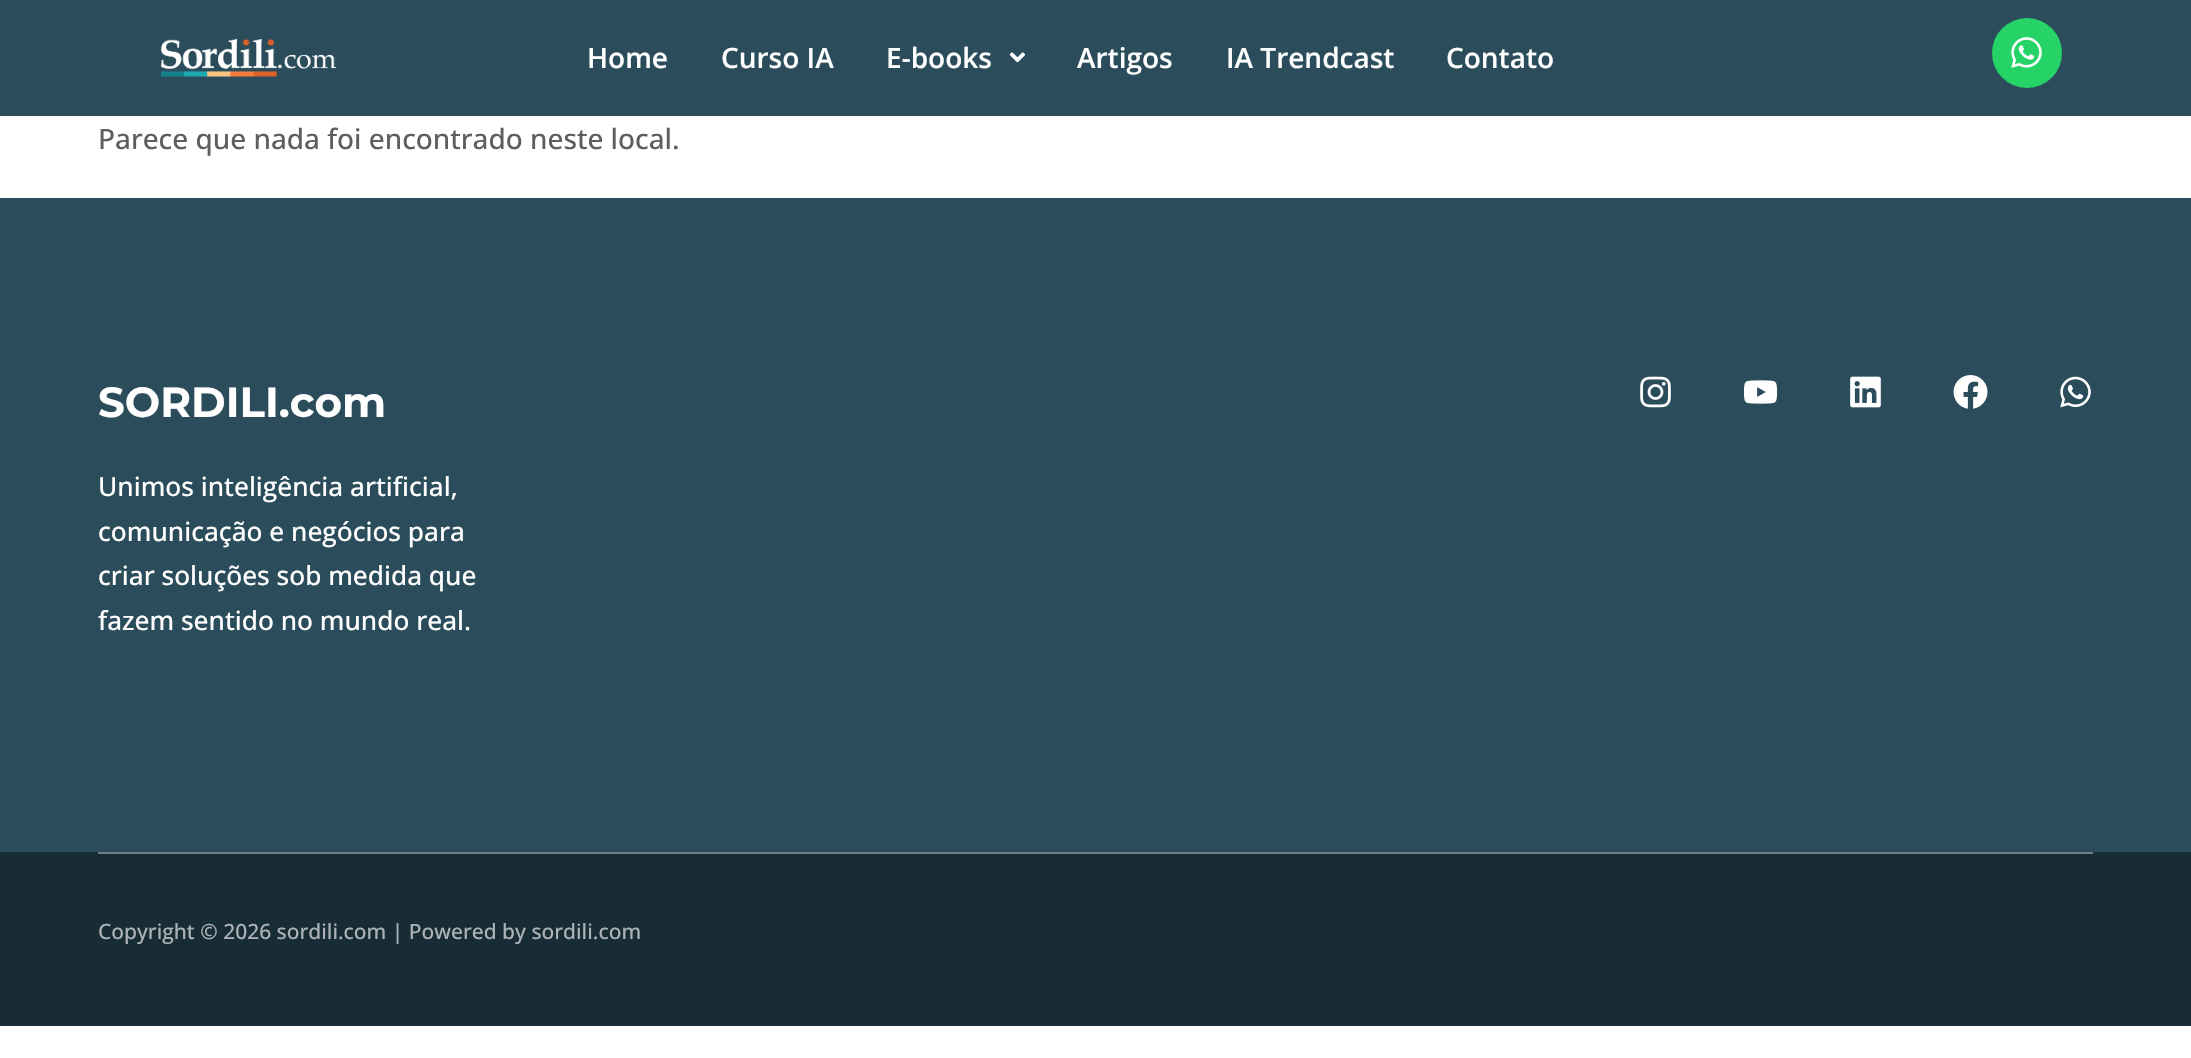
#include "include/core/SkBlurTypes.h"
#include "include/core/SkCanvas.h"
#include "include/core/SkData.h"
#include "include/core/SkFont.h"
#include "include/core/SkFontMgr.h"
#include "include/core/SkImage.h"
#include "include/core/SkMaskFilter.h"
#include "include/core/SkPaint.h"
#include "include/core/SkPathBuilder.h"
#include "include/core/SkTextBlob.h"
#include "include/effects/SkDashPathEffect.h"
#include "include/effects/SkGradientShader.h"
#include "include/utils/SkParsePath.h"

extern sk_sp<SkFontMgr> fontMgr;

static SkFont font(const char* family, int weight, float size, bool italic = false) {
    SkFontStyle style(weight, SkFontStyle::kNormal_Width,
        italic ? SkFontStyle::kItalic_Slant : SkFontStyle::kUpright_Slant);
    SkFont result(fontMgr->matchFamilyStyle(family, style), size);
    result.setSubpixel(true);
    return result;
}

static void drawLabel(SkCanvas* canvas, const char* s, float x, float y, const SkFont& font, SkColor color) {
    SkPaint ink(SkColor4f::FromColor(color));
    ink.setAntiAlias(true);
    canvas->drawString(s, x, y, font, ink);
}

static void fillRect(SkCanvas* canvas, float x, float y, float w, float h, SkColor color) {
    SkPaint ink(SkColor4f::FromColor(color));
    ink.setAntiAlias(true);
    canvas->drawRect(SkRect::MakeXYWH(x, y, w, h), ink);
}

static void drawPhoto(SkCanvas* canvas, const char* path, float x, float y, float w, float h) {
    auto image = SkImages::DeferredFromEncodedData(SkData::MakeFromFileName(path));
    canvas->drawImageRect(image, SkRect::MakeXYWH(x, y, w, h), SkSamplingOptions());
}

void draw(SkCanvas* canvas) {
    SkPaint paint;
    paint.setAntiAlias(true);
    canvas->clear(0xFFFFFFFF);
    fillRect(canvas, 0, 0, 2191, 116, 0xFF2B4D5B);
    drawPhoto(canvas, "assets/img1.png", 161, 39, 175, 38);
    SkFont font1 = font("Open Sans", 600, 28);
    drawLabel(canvas, "Home", 587, 68, font1, 0xFFFFFFFF);
    drawLabel(canvas, "Curso IA", 721, 68, font1, 0xFFFFFFFF);
    drawLabel(canvas, "E-books", 886, 68, font1, 0xFFFFFFFF);
    drawPhoto(canvas, "assets/img2.png", 1009, 52, 17, 11);
    drawLabel(canvas, "Artigos", 1077, 68, font1, 0xFFFFFFFF);
    drawLabel(canvas, "IA Trendcast", 1226, 68, font1, 0xFFFFFFFF);
    drawLabel(canvas, "Contato", 1446, 68, font1, 0xFFFFFFFF);
    paint.setColor(0xFF25D366);
    canvas->drawCircle(2027, 53, 35, paint);
    drawPhoto(canvas, "assets/img3.png", 2011, 37, 31, 31);
    SkFont font2 = font("Open Sans", 500, 28);
    drawLabel(canvas, "Parece que nada foi encontrado neste local.", 98, 149, font2, 0xFF5E5E5E);
    fillRect(canvas, 0, 198, 2191, 654, 0xFF2B4D5B);
    SkFont font3 = font("Montserrat", 700, 42);
    drawLabel(canvas, "SORDILI.com", 98, 417, font3, 0xFFFFFFFF);
    SkFont font4 = font("Open Sans", 500, 26.25f);
    drawLabel(canvas, "Unimos inteligência artificial,", 98, 496, font4, 0xFFFFFFFF);
    drawLabel(canvas, "comunicação e negócios para", 98, 541, font4, 0xFFFFFFFF);
    drawLabel(canvas, "criar soluções sob medida que", 98, 585, font4, 0xFFFFFFFF);
    drawLabel(canvas, "fazem sentido no mundo real.", 98, 630, font4, 0xFFFFFFFF);
    drawPhoto(canvas, "assets/img4.png", 1640, 376, 31, 32);
    drawPhoto(canvas, "assets/img5.png", 1743, 380, 35, 24);
    drawPhoto(canvas, "assets/img6.png", 1850, 376, 31, 32);
    drawPhoto(canvas, "assets/img7.png", 1953, 375, 35, 34);
    drawPhoto(canvas, "assets/img8.png", 2060, 376, 31, 32);
    fillRect(canvas, 0, 852, 2191, 174, 0xFF182C35);
    fillRect(canvas, 98, 852, 1995, 2, 0xFF727E84);
    SkFont font5 = font("Open Sans", 500, 21);
    drawLabel(canvas, "Copyright © 2026 sordili.com | Powered by sordili.com", 98, 939, font5, 0xFFACB3B6);
}
